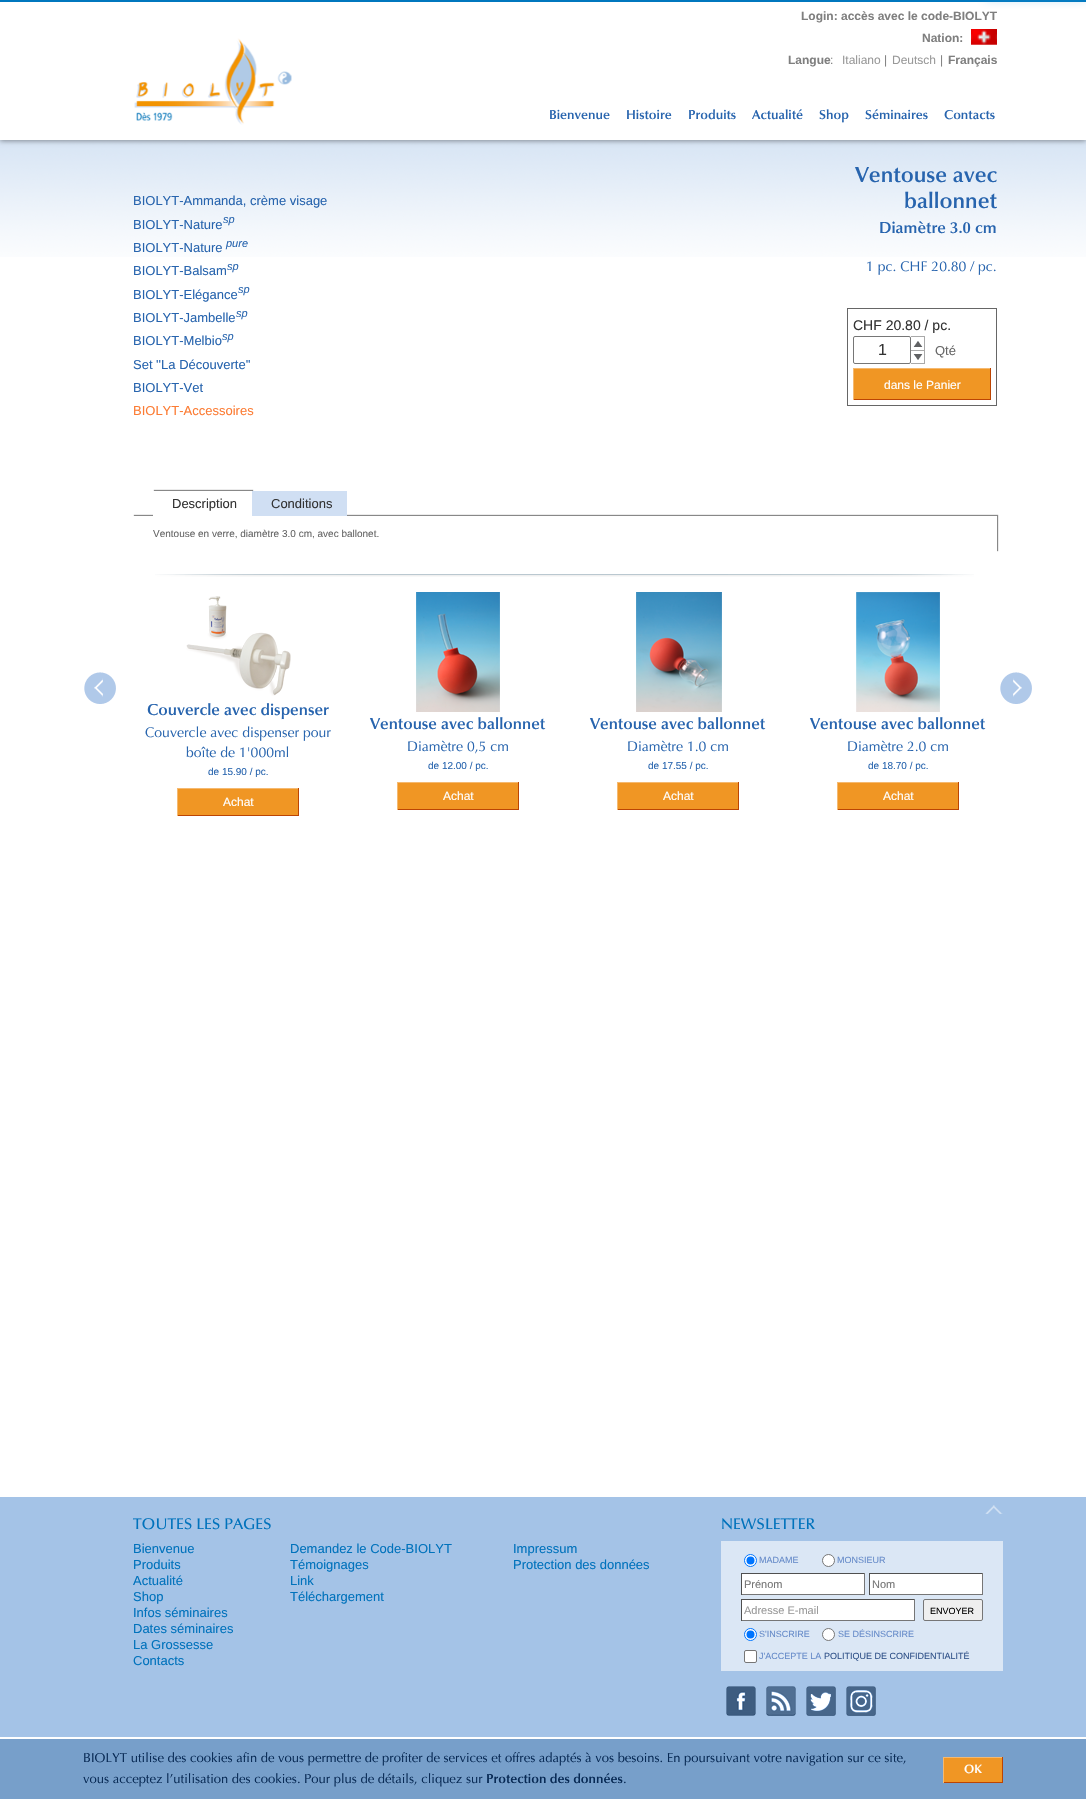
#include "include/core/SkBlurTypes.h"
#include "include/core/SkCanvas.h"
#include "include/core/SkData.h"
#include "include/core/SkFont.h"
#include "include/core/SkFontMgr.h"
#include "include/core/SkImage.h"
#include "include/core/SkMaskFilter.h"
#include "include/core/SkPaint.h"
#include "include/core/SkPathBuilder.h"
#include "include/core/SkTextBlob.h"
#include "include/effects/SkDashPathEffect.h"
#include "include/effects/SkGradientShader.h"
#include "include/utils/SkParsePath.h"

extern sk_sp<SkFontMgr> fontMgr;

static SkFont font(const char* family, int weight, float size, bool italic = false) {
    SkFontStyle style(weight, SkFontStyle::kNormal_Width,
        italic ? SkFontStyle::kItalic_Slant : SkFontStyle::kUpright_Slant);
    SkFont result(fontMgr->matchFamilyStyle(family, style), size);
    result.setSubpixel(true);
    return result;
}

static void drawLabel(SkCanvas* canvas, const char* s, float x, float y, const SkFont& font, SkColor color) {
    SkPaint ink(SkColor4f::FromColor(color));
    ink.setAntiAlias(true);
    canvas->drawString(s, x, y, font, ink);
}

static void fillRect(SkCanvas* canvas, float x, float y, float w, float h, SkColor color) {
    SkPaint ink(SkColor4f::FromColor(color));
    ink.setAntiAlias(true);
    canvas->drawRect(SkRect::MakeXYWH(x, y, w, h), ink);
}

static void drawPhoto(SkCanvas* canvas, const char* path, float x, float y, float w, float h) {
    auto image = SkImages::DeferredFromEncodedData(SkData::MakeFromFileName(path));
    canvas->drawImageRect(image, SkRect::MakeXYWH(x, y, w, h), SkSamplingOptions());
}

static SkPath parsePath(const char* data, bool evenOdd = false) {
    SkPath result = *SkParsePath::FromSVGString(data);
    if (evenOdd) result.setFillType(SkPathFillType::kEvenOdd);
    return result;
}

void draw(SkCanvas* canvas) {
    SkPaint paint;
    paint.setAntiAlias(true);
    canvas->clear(0xFFFFFFFF);
    drawPhoto(canvas, "assets/img3.png", 0, 140, 1086, 117);
    paint.setColor(0x66000000);
    paint.setMaskFilter(SkMaskFilter::MakeBlur(kNormal_SkBlurStyle, 2.5f));
    canvas->drawRect(SkRect::MakeXYWH(0, 1, 1086, 140), paint);
    paint.setMaskFilter(nullptr);
    fillRect(canvas, 0, 0, 1086, 2, 0xFF0077BE);
    fillRect(canvas, 0, 2, 1086, 138, 0xFFFFFFFF);
    paint.setColor(0xFF2299DD);
    paint.setMaskFilter(SkMaskFilter::MakeBlur(kNormal_SkBlurStyle, 5));
    canvas->drawRect(SkRect::MakeXYWH(986, -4, 100, 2), paint);
    paint.setMaskFilter(nullptr);
    drawPhoto(canvas, "assets/img1.png", 134, 38, 158, 87);
    SkFont font1 = font("Liberation Sans", 700, 12);
    drawLabel(canvas, "Login: accès avec le code-BIOLYT", 801, 20, font1, 0xFF7F7F7F);
    drawLabel(canvas, "Nation:", 922, 42, font1, 0xFF7F7F7F);
    drawPhoto(canvas, "assets/img2.png", 971, 29, 26, 16);
    drawLabel(canvas, "Langue", 788, 64, font1, 0xFF7F7F7F);
    SkFont font2 = font("Liberation Sans", 400, 12);
    drawLabel(canvas, ":", 830, 64, font2, 0xFF7F7F7F);
    drawLabel(canvas, "Italiano", 842, 64, font2, 0xFF999999);
    drawLabel(canvas, "|", 884, 64, font2, 0xFF7F7F7F);
    drawLabel(canvas, "Deutsch", 892, 64, font2, 0xFF999999);
    drawLabel(canvas, "|", 940, 64, font2, 0xFF7F7F7F);
    drawLabel(canvas, "Français", 948, 64, font1, 0xFF7F7F7F);
    SkFont font3 = font("Optima", 600, 13);
    drawLabel(canvas, "Bienvenue", 549, 119, font3, 0xFF2764AE);
    drawLabel(canvas, "Histoire", 626, 119, font3, 0xFF2764AE);
    drawLabel(canvas, "Produits", 688, 119, font3, 0xFF2764AE);
    drawLabel(canvas, "Actualité", 752, 119, font3, 0xFF2764AE);
    drawLabel(canvas, "Shop", 819, 119, font3, 0xFF2764AE);
    drawLabel(canvas, "Séminaires", 865, 119, font3, 0xFF2764AE);
    drawLabel(canvas, "Contacts", 944, 119, font3, 0xFF2764AE);
    SkFont font4 = font("Liberation Sans", 400, 13);
    drawLabel(canvas, "BIOLYT-Ammanda, crème visage", 133, 205, font4, 0xFF2764AE);
    drawLabel(canvas, "BIOLYT-Nature", 133, 229, font4, 0xFF2764AE);
    SkFont font5 = font("Liberation Sans", 400, 11, true);
    drawLabel(canvas, "sp", 223, 223, font5, 0xFF2764AE);
    drawLabel(canvas, "BIOLYT-Nature", 133, 252, font4, 0xFF2764AE);
    drawLabel(canvas, "pure", 226, 247, font5, 0xFF2764AE);
    drawLabel(canvas, "BIOLYT-Balsam", 133, 275, font4, 0xFF2764AE);
    drawLabel(canvas, "sp", 227, 270, font5, 0xFF2764AE);
    drawLabel(canvas, "BIOLYT-Elégance", 133, 299, font4, 0xFF2764AE);
    drawLabel(canvas, "sp", 238, 293, font5, 0xFF2764AE);
    drawLabel(canvas, "BIOLYT-Jambelle", 133, 322, font4, 0xFF2764AE);
    drawLabel(canvas, "sp", 236, 317, font5, 0xFF2764AE);
    drawLabel(canvas, "BIOLYT-Melbio", 133, 345, font4, 0xFF2764AE);
    drawLabel(canvas, "sp", 222, 340, font5, 0xFF2764AE);
    drawLabel(canvas, "Set ''La Découverte''", 133, 369, font4, 0xFF2764AE);
    drawLabel(canvas, "BIOLYT-Vet", 133, 392, font4, 0xFF2764AE);
    drawLabel(canvas, "BIOLYT-Accessoires", 133, 415, font4, 0xFFFC7C34);
    SkFont font6 = font("Optima", 600, 22);
    drawLabel(canvas, "Ventouse avec", 855, 182, font6, 0xFF2764AE);
    drawLabel(canvas, "ballonnet", 904, 208, font6, 0xFF2764AE);
    SkFont font7 = font("Optima", 600, 16);
    drawLabel(canvas, "Diamètre 3.0 cm", 879, 233, font7, 0xFF2764AE);
    SkFont font8 = font("Optima", 400, 14);
    drawLabel(canvas, "1 pc. CHF 20.80 / pc.", 866, 271, font8, 0xFF2764AE);
    paint.setStroke(true);
    paint.setStrokeWidth(1);
    paint.setColor(0xFF666666);
    canvas->drawRect(SkRect::MakeXYWH(847.5f, 308.5f, 149, 97), paint);
    SkFont font9 = font("Liberation Sans", 400, 14);
    drawLabel(canvas, "CHF 20.80 / pc.", 853, 330, font9, 0xFF333333);
    paint.setColor(0xFF767676);
    canvas->drawRoundRect(SkRect::MakeXYWH(853.5f, 336.5f, 57, 27), 1.5f, 1.5f, paint);
    SkFont font10 = font("Liberation Sans", 400, 16);
    drawLabel(canvas, "1", 878, 355, font10, 0xFF333333);
    fillRect(canvas, 911, 336, 14, 1, 0xFFA9A9A9);
    fillRect(canvas, 924, 336, 1, 14, 0xFFA9A9A9);
    drawPhoto(canvas, "assets/img4.png", 913, 341, 10, 6);
    fillRect(canvas, 911, 350, 14, 1, 0xFFA9A9A9);
    fillRect(canvas, 924, 350, 1, 14, 0xFFA9A9A9);
    fillRect(canvas, 911, 363, 14, 1, 0xFFA9A9A9);
    drawPhoto(canvas, "assets/img5.png", 913, 354, 10, 6);
    drawLabel(canvas, "Qté", 935, 355, font4, 0xFF666666);
    fillRect(canvas, 854, 369, 136, 30, 0xFFF09624);
    fillRect(canvas, 853, 368, 138, 1, 0xFFF5B970);
    fillRect(canvas, 990, 368, 1, 32, 0xFFBC4403);
    fillRect(canvas, 853, 399, 138, 1, 0xFFBC4403);
    fillRect(canvas, 853, 368, 1, 32, 0xFFF5B970);
    drawLabel(canvas, "dans le Panier", 884, 389, font2, 0xFFFFFFFF);
    paint.setStroke(false);
    paint.setColor(0xFF888888);
    paint.setMaskFilter(SkMaskFilter::MakeBlur(kNormal_SkBlurStyle, 0.5f));
    canvas->drawRect(SkRect::MakeXYWH(154, 490, 99, 25), paint);
    paint.setMaskFilter(nullptr);
    canvas->save();
    canvas->clipPath(parsePath("M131 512H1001V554H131ZM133 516H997V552H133Z", true), true);
    paint.setMaskFilter(SkMaskFilter::MakeBlur(kNormal_SkBlurStyle, 0.5f));
    canvas->drawRect(SkRect::MakeXYWH(134, 515, 864, 36), paint);
    paint.setMaskFilter(nullptr);
    canvas->restore();
    fillRect(canvas, 153, 491, 99, 25, 0xFFFFFFFF);
    drawLabel(canvas, "Description", 172, 508, font4, 0xFF333333);
    fillRect(canvas, 252, 491, 95, 25, 0xFFD0DFF3);
    drawLabel(canvas, "Conditions", 271, 508, font4, 0xFF333333);
    SkFont font11 = font("Liberation Sans", 400, 10);
    drawLabel(canvas, "Ventouse en verre, diamètre 3.0 cm, avec ballonet.", 153, 537, font11, 0xFF666666);
    drawPhoto(canvas, "assets/img6.png", 155, 574, 819, 3);
    drawPhoto(canvas, "assets/img7.png", 84, 672, 32, 32);
    drawPhoto(canvas, "assets/img8.png", 1000, 672, 32, 32);
    drawPhoto(canvas, "assets/img9.png", 186, 596, 105, 100);
    drawLabel(canvas, "Couvercle avec dispenser", 147, 715, font7, 0xFF2764AE);
    drawLabel(canvas, "Couvercle avec dispenser pour", 145, 737, font8, 0xFF2764AE);
    drawLabel(canvas, "boîte de 1'000ml", 186, 757, font8, 0xFF2764AE);
    drawLabel(canvas, "de 15.90 / pc.", 208, 775, font11, 0xFF2764AE);
    fillRect(canvas, 178, 789, 120, 26, 0xFFF09624);
    fillRect(canvas, 177, 788, 122, 1, 0xFFF5B970);
    fillRect(canvas, 298, 788, 1, 28, 0xFFBC4403);
    fillRect(canvas, 177, 815, 122, 1, 0xFFBC4403);
    fillRect(canvas, 177, 788, 1, 28, 0xFFF5B970);
    drawLabel(canvas, "Achat", 223, 806, font2, 0xFFFFFFFF);
    drawPhoto(canvas, "assets/img10.png", 416, 592, 84, 120);
    drawLabel(canvas, "Ventouse avec ballonnet", 370, 729, font7, 0xFF2764AE);
    drawLabel(canvas, "Diamètre 0,5 cm", 407, 751, font8, 0xFF2764AE);
    drawLabel(canvas, "de 12.00 / pc.", 428, 769, font11, 0xFF2764AE);
    fillRect(canvas, 398, 783, 120, 26, 0xFFF09624);
    fillRect(canvas, 397, 782, 122, 1, 0xFFF5B970);
    fillRect(canvas, 518, 782, 1, 28, 0xFFBC4403);
    fillRect(canvas, 397, 809, 122, 1, 0xFFBC4403);
    fillRect(canvas, 397, 782, 1, 28, 0xFFF5B970);
    drawLabel(canvas, "Achat", 443, 800, font2, 0xFFFFFFFF);
    drawPhoto(canvas, "assets/img11.png", 636, 592, 86, 120);
    drawLabel(canvas, "Ventouse avec ballonnet", 590, 729, font7, 0xFF2764AE);
    drawLabel(canvas, "Diamètre 1.0 cm", 627, 751, font8, 0xFF2764AE);
    drawLabel(canvas, "de 17.55 / pc.", 648, 769, font11, 0xFF2764AE);
    fillRect(canvas, 618, 783, 120, 26, 0xFFF09624);
    fillRect(canvas, 617, 782, 122, 1, 0xFFF5B970);
    fillRect(canvas, 738, 782, 1, 28, 0xFFBC4403);
    fillRect(canvas, 617, 809, 122, 1, 0xFFBC4403);
    fillRect(canvas, 617, 782, 1, 28, 0xFFF5B970);
    drawLabel(canvas, "Achat", 663, 800, font2, 0xFFFFFFFF);
    drawPhoto(canvas, "assets/img12.png", 856, 592, 84, 120);
    drawLabel(canvas, "Ventouse avec ballonnet", 810, 729, font7, 0xFF2764AE);
    drawLabel(canvas, "Diamètre 2.0 cm", 847, 751, font8, 0xFF2764AE);
    drawLabel(canvas, "de 18.70 / pc.", 868, 769, font11, 0xFF2764AE);
    fillRect(canvas, 838, 783, 120, 26, 0xFFF09624);
    fillRect(canvas, 837, 782, 122, 1, 0xFFF5B970);
    fillRect(canvas, 958, 782, 1, 28, 0xFFBC4403);
    fillRect(canvas, 837, 809, 122, 1, 0xFFBC4403);
    fillRect(canvas, 837, 782, 1, 28, 0xFFF5B970);
    drawLabel(canvas, "Achat", 883, 800, font2, 0xFFFFFFFF);
    fillRect(canvas, 0, 1497, 1086, 240, 0xFFA4C3E7);
    drawPhoto(canvas, "assets/img13.png", 985, 1505, 18, 9);
    SkFont font12 = font("Optima", 500, 15.5f);
    drawLabel(canvas, "TOUTES LES PAGES", 133, 1529, font12, 0xFF0072BC);
    drawLabel(canvas, "Bienvenue", 133, 1553, font4, 0xFF0072BC);
    drawLabel(canvas, "Produits", 133, 1569, font4, 0xFF0072BC);
    drawLabel(canvas, "Actualité", 133, 1585, font4, 0xFF0072BC);
    drawLabel(canvas, "Shop", 133, 1601, font4, 0xFF0072BC);
    drawLabel(canvas, "Infos séminaires", 133, 1617, font4, 0xFF0072BC);
    drawLabel(canvas, "Dates séminaires", 133, 1633, font4, 0xFF0072BC);
    drawLabel(canvas, "La Grossesse", 133, 1649, font4, 0xFF0072BC);
    drawLabel(canvas, "Contacts", 133, 1665, font4, 0xFF0072BC);
    drawLabel(canvas, "Demandez le Code-BIOLYT", 290, 1553, font4, 0xFF0072BC);
    drawLabel(canvas, "Témoignages", 290, 1569, font4, 0xFF0072BC);
    drawLabel(canvas, "Link", 290, 1585, font4, 0xFF0072BC);
    drawLabel(canvas, "Téléchargement", 290, 1601, font4, 0xFF0072BC);
    drawLabel(canvas, "Impressum", 513, 1553, font4, 0xFF0072BC);
    drawLabel(canvas, "Protection des données", 513, 1569, font4, 0xFF0072BC);
    drawLabel(canvas, "NEWSLETTER", 721, 1529, font12, 0xFF0072BC);
    fillRect(canvas, 721, 1541, 282, 130, 0xFFDBE7F5);
    paint.setColor(0xFFFFFFFF);
    canvas->drawCircle(750.5f, 1560.5f, 6, paint);
    paint.setStroke(true);
    paint.setColor(0xFF0075FF);
    canvas->drawCircle(750.5f, 1560.5f, 6, paint);
    paint.setStroke(false);
    canvas->drawCircle(750.5f, 1560.5f, 4, paint);
    SkFont font13 = font("Liberation Sans", 400, 9);
    drawLabel(canvas, "MADAME", 759, 1563, font13, 0xFF668BC9);
    paint.setColor(0xFFFFFFFF);
    canvas->drawCircle(828.5f, 1560.5f, 6, paint);
    paint.setStroke(true);
    paint.setColor(0xFF767676);
    canvas->drawCircle(828.5f, 1560.5f, 6, paint);
    drawLabel(canvas, "MONSIEUR", 837, 1563, font13, 0xFF668BC9);
    fillRect(canvas, 742, 1574, 122, 20, 0xFFFFFFFF);
    fillRect(canvas, 741, 1573, 124, 1, 0xFF4F4F4F);
    fillRect(canvas, 864, 1573, 1, 22, 0xFF767676);
    fillRect(canvas, 741, 1594, 124, 1, 0xFF767676);
    fillRect(canvas, 741, 1573, 1, 22, 0xFF4F4F4F);
    SkFont font14 = font("Liberation Sans", 400, 11);
    drawLabel(canvas, "Prénom", 744, 1588, font14, 0xFF757575);
    fillRect(canvas, 870, 1574, 112, 20, 0xFFFFFFFF);
    fillRect(canvas, 869, 1573, 114, 1, 0xFF4F4F4F);
    fillRect(canvas, 982, 1573, 1, 22, 0xFF767676);
    fillRect(canvas, 869, 1594, 114, 1, 0xFF767676);
    fillRect(canvas, 869, 1573, 1, 22, 0xFF4F4F4F);
    drawLabel(canvas, "Nom", 872, 1588, font14, 0xFF757575);
    fillRect(canvas, 742, 1600, 172, 20, 0xFFFFFFFF);
    fillRect(canvas, 741, 1599, 174, 1, 0xFF4F4F4F);
    fillRect(canvas, 914, 1599, 1, 22, 0xFF767676);
    fillRect(canvas, 741, 1620, 174, 1, 0xFF767676);
    fillRect(canvas, 741, 1599, 1, 22, 0xFF4F4F4F);
    drawLabel(canvas, "Adresse E-mail", 744, 1614, font14, 0xFF999999);
    paint.setStroke(false);
    paint.setColor(0xFFEFEFEF);
    canvas->drawRoundRect(SkRect::MakeXYWH(923.5f, 1599.5f, 59, 21), 1.5f, 1.5f, paint);
    paint.setStroke(true);
    paint.setColor(0xFF767676);
    canvas->drawRoundRect(SkRect::MakeXYWH(923.5f, 1599.5f, 59, 21), 1.5f, 1.5f, paint);
    drawLabel(canvas, "ENVOYER", 930, 1614, font13, 0xFF000000);
    paint.setStroke(false);
    paint.setColor(0xFFFFFFFF);
    canvas->drawCircle(750.5f, 1634.5f, 6, paint);
    paint.setStroke(true);
    paint.setColor(0xFF0075FF);
    canvas->drawCircle(750.5f, 1634.5f, 6, paint);
    paint.setStroke(false);
    canvas->drawCircle(750.5f, 1634.5f, 4, paint);
    drawLabel(canvas, "S'INSCRIRE", 759, 1637, font13, 0xFF668BC9);
    paint.setColor(0xFFFFFFFF);
    canvas->drawCircle(828.5f, 1634.5f, 6, paint);
    paint.setStroke(true);
    paint.setColor(0xFF767676);
    canvas->drawCircle(828.5f, 1634.5f, 6, paint);
    drawLabel(canvas, "SE DÉSINSCRIRE", 838, 1637, font13, 0xFF668BC9);
    paint.setStroke(false);
    paint.setColor(0xFFFFFFFF);
    canvas->drawRoundRect(SkRect::MakeXYWH(744.5f, 1650.5f, 12, 12), 1.5f, 1.5f, paint);
    paint.setStroke(true);
    paint.setColor(0xFF767676);
    canvas->drawRoundRect(SkRect::MakeXYWH(744.5f, 1650.5f, 12, 12), 1.5f, 1.5f, paint);
    drawLabel(canvas, "J'ACCEPTE LA", 759, 1659, font13, 0xFF668BC9);
    drawLabel(canvas, "POLITIQUE DE CONFIDENTIALITÉ", 824, 1659, font13, 0xFF305289);
    drawPhoto(canvas, "assets/img14.png", 721, 1681, 40, 40);
    drawPhoto(canvas, "assets/img15.png", 761, 1681, 40, 40);
    drawPhoto(canvas, "assets/img16.png", 801, 1681, 40, 40);
    drawPhoto(canvas, "assets/img17.png", 841, 1681, 40, 40);
    fillRect(canvas, 0, 1739, 1086, 60, 0xFF779FCA);
    SkFont font15 = font("Optima", 400, 13);
    drawLabel(canvas, "BIOLYT utilise des cookies afin de vous permettre de profiter de services et offres adaptés à vos besoins. En poursuivant votre navigation sur ce site,", 83, 1762, font15, 0xFF072954);
    drawLabel(canvas, "vous acceptez l’utilisation des cookies. Pour plus de détails, cliquez sur", 83, 1783, font15, 0xFF072954);
    drawLabel(canvas, "Protection des données", 486, 1783, font3, 0xFF072954);
    drawLabel(canvas, ".", 623, 1783, font15, 0xFF072954);
    fillRect(canvas, 944, 1758, 58, 24, 0xFFF09624);
    SkFont font16 = font("Optima", 600, 12);
    drawLabel(canvas, "OK", 964, 1773, font16, 0xFFFFFFFF);
    fillRect(canvas, 943, 1757, 60, 1, 0xFFF5B970);
    fillRect(canvas, 1002, 1757, 1, 26, 0xFFBC4403);
    fillRect(canvas, 943, 1782, 60, 1, 0xFFBC4403);
    fillRect(canvas, 943, 1757, 1, 26, 0xFFF5B970);
}
